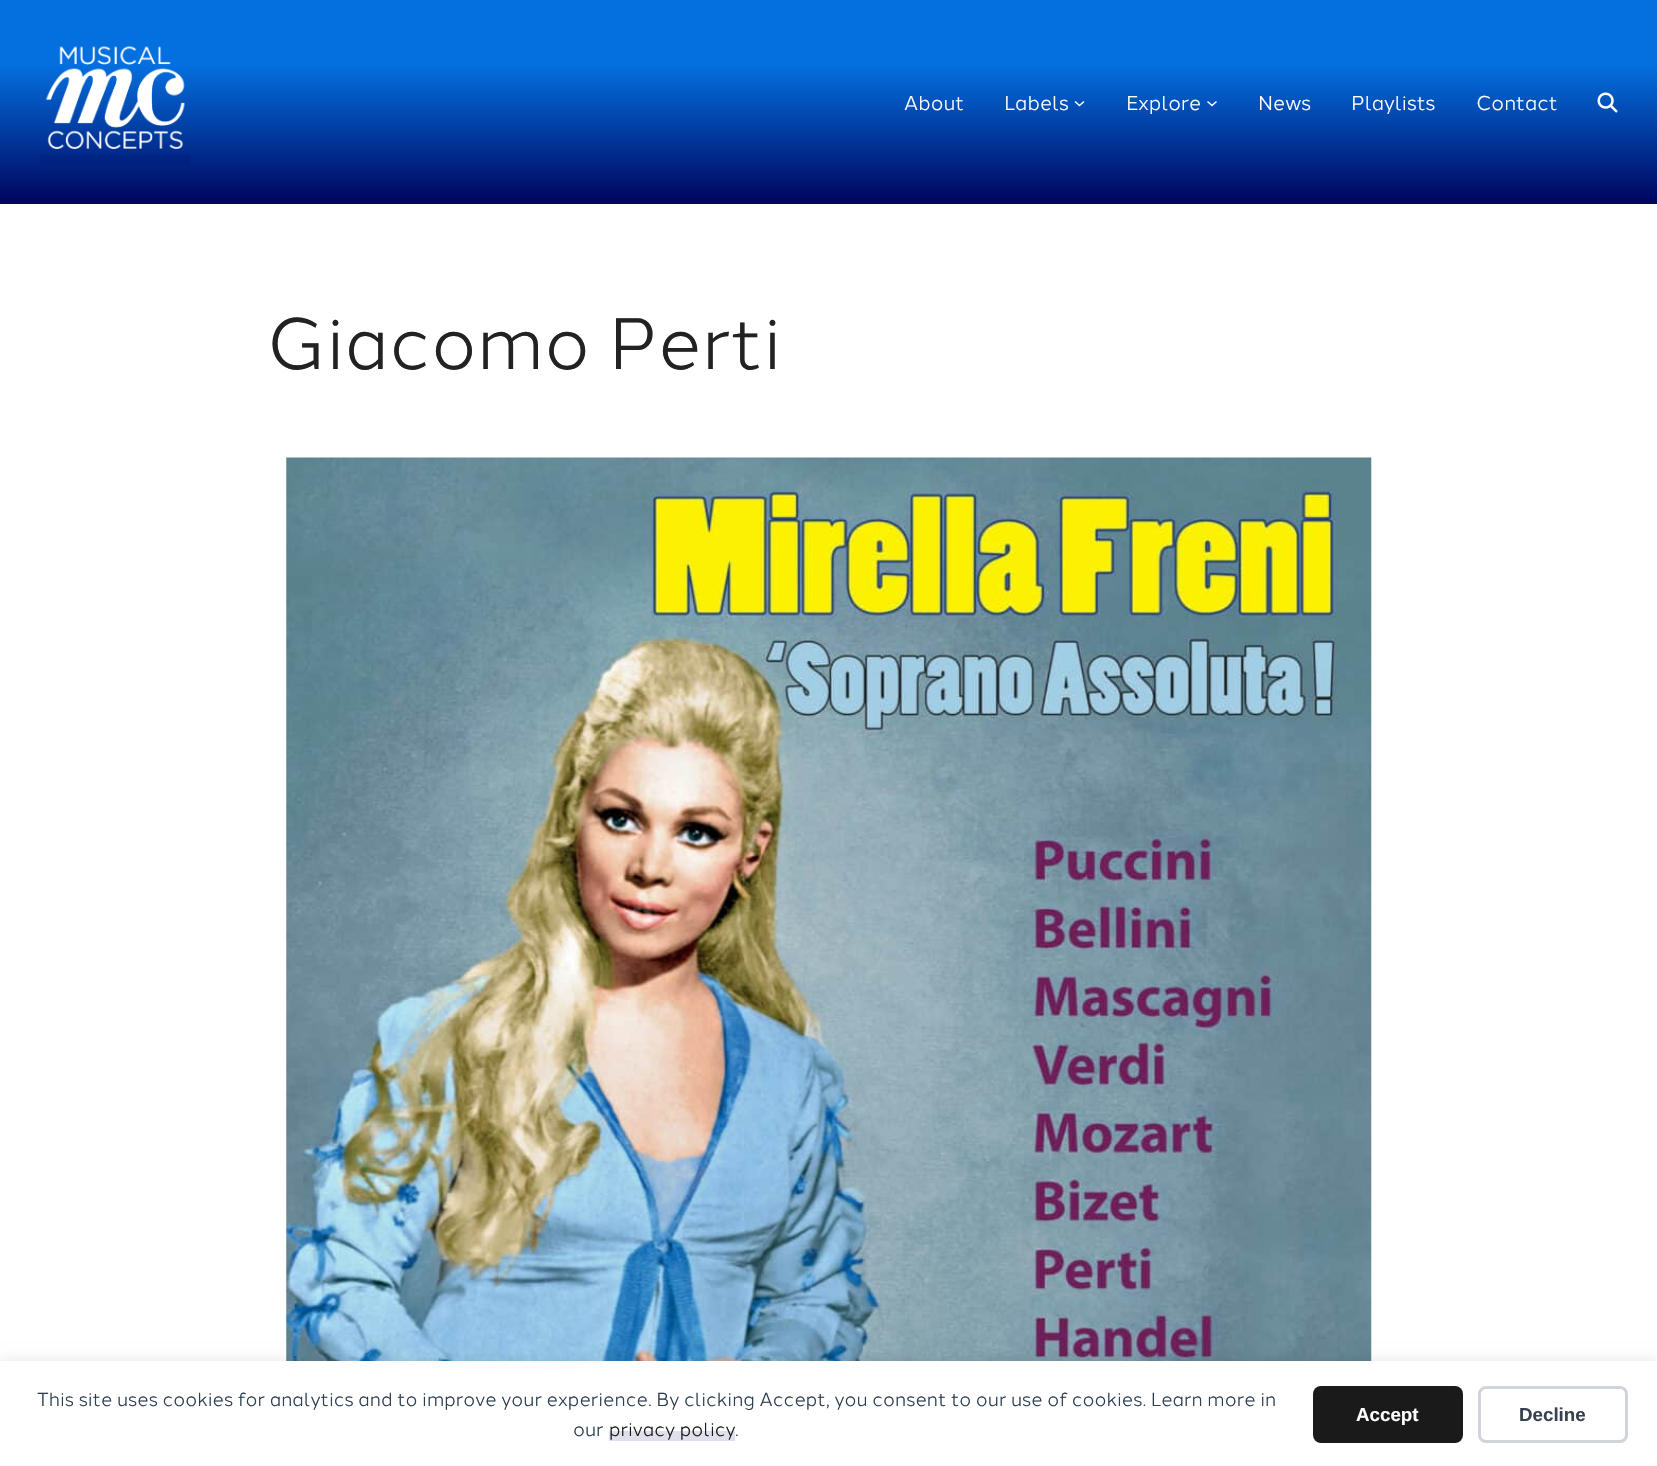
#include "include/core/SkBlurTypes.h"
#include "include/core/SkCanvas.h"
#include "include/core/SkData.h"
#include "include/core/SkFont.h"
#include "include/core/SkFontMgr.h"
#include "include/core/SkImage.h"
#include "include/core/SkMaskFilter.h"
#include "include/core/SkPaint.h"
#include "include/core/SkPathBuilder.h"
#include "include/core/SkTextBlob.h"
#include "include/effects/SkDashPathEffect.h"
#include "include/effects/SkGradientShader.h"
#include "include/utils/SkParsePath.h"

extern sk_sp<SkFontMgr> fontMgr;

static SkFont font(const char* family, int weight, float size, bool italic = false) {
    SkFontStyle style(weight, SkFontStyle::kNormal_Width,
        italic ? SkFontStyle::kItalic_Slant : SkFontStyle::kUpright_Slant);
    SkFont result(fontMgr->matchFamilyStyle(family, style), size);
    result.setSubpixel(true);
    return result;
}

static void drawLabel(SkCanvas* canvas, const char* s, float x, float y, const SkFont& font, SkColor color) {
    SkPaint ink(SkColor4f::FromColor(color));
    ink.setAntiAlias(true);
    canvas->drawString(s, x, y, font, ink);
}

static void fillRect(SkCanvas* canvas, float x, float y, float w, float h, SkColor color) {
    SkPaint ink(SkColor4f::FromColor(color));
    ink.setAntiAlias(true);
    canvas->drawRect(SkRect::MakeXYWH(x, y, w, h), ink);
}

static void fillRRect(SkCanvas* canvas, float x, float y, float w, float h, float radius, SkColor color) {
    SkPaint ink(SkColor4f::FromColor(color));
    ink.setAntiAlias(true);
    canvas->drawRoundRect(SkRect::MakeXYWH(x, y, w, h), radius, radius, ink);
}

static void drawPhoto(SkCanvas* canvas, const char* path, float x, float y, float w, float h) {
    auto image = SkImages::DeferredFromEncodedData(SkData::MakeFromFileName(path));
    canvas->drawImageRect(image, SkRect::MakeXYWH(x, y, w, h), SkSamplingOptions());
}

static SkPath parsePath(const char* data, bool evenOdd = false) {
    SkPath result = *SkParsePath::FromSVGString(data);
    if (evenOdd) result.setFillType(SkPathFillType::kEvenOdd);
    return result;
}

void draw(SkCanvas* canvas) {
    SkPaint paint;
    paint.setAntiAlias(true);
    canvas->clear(0xFFFFFFFF);
    {
        const SkColor colors[] = {0xFF046FDE, 0xFF00045D};
        const float stops[] = {0.32f, 1};
        const SkPoint ends[] = {{829, 0}, {829, 204}};
        paint.setShader(SkGradientShader::MakeLinear(ends, colors, stops, 2, SkTileMode::kClamp));
        paint.setAlpha(255);
    }
    canvas->drawRect(SkRect::MakeXYWH(0, 0, 1657, 204), paint);
    {
        const SkColor colors[] = {0xFF0462CF, 0xFF00045D};
        const float stops[] = {0.32f, 1};
        const SkPoint ends[] = {{829, 0}, {829, 204}};
        paint.setShader(SkGradientShader::MakeLinear(ends, colors, stops, 2, SkTileMode::kClamp));
        paint.setAlpha(255);
    }
    canvas->drawRect(SkRect::MakeXYWH(40, 154, 150, 10), paint);
    drawPhoto(canvas, "assets/img1.png", 45, 46, 140, 104);
    SkFont font1 = font("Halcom", 400, 20);
    drawLabel(canvas, "About", 904, 110, font1, 0xFFFFFFFF);
    drawLabel(canvas, "Labels", 1004, 110, font1, 0xFFFFFFFF);
    paint.setStroke(true);
    paint.setStrokeWidth(1.5f);
    paint.setShader(nullptr);
    paint.setColor(0xFFFFFFFF);
    canvas->drawPath(parsePath("M1075 101.5L1079.5 105.5L1084 101.5"), paint);
    drawLabel(canvas, "Explore", 1126, 110, font1, 0xFFFFFFFF);
    canvas->drawPath(parsePath("M1207.5 101.5L1212 105.5L1216.5 101.5"), paint);
    drawLabel(canvas, "News", 1258, 110, font1, 0xFFFFFFFF);
    drawLabel(canvas, "Playlists", 1351, 110, font1, 0xFFFFFFFF);
    drawLabel(canvas, "Contact", 1476, 110, font1, 0xFFFFFFFF);
    drawPhoto(canvas, "assets/img2.png", 1597, 92, 21, 21);
    SkFont font2 = font("Halcom", 400, 72.5f);
    drawLabel(canvas, "Giacomo Perti", 266, 369, font2, 0xFF222222);
    drawPhoto(canvas, "assets/img3.png", 286, 457, 1086, 904);
    paint.setStroke(false);
    paint.setColor(0x14000000);
    paint.setMaskFilter(SkMaskFilter::MakeBlur(kNormal_SkBlurStyle, 6));
    canvas->drawRect(SkRect::MakeXYWH(0, 1359, 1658, 105), paint);
    paint.setMaskFilter(nullptr);
    fillRect(canvas, 0, 1361, 1657, 105, 0xFFFFFFFF);
    SkFont font3 = font("Halcom", 400, 18.75f);
    drawLabel(canvas, "This site uses cookies for analytics and to improve your experience. By clicking Accept, you consent to our use of cookies. Learn more in", 37, 1406, font3, 0xFF2C3E50);
    drawLabel(canvas, "our", 573, 1436, font3, 0xFF2C3E50);
    fillRect(canvas, 609, 1431, 126, 10, 0xFFDFE0EB);
    drawLabel(canvas, "privacy policy", 609, 1436, font3, 0xFF1A1A1A);
    drawLabel(canvas, ".", 735, 1436, font3, 0xFF2C3E50);
    fillRRect(canvas, 1313, 1386, 150, 57, 8, 0xFF1A1A1A);
    SkFont font4 = font("Liberation Sans", 700, 18.75f);
    drawLabel(canvas, "Accept", 1356, 1421, font4, 0xFFFFFFFF);
    paint.setStroke(true);
    paint.setStrokeWidth(3);
    paint.setColor(0xFFD1D5DB);
    canvas->drawRoundRect(SkRect::MakeXYWH(1479.5f, 1387.5f, 147, 54), 6.5f, 6.5f, paint);
    drawLabel(canvas, "Decline", 1519, 1421, font4, 0xFF374151);
}
